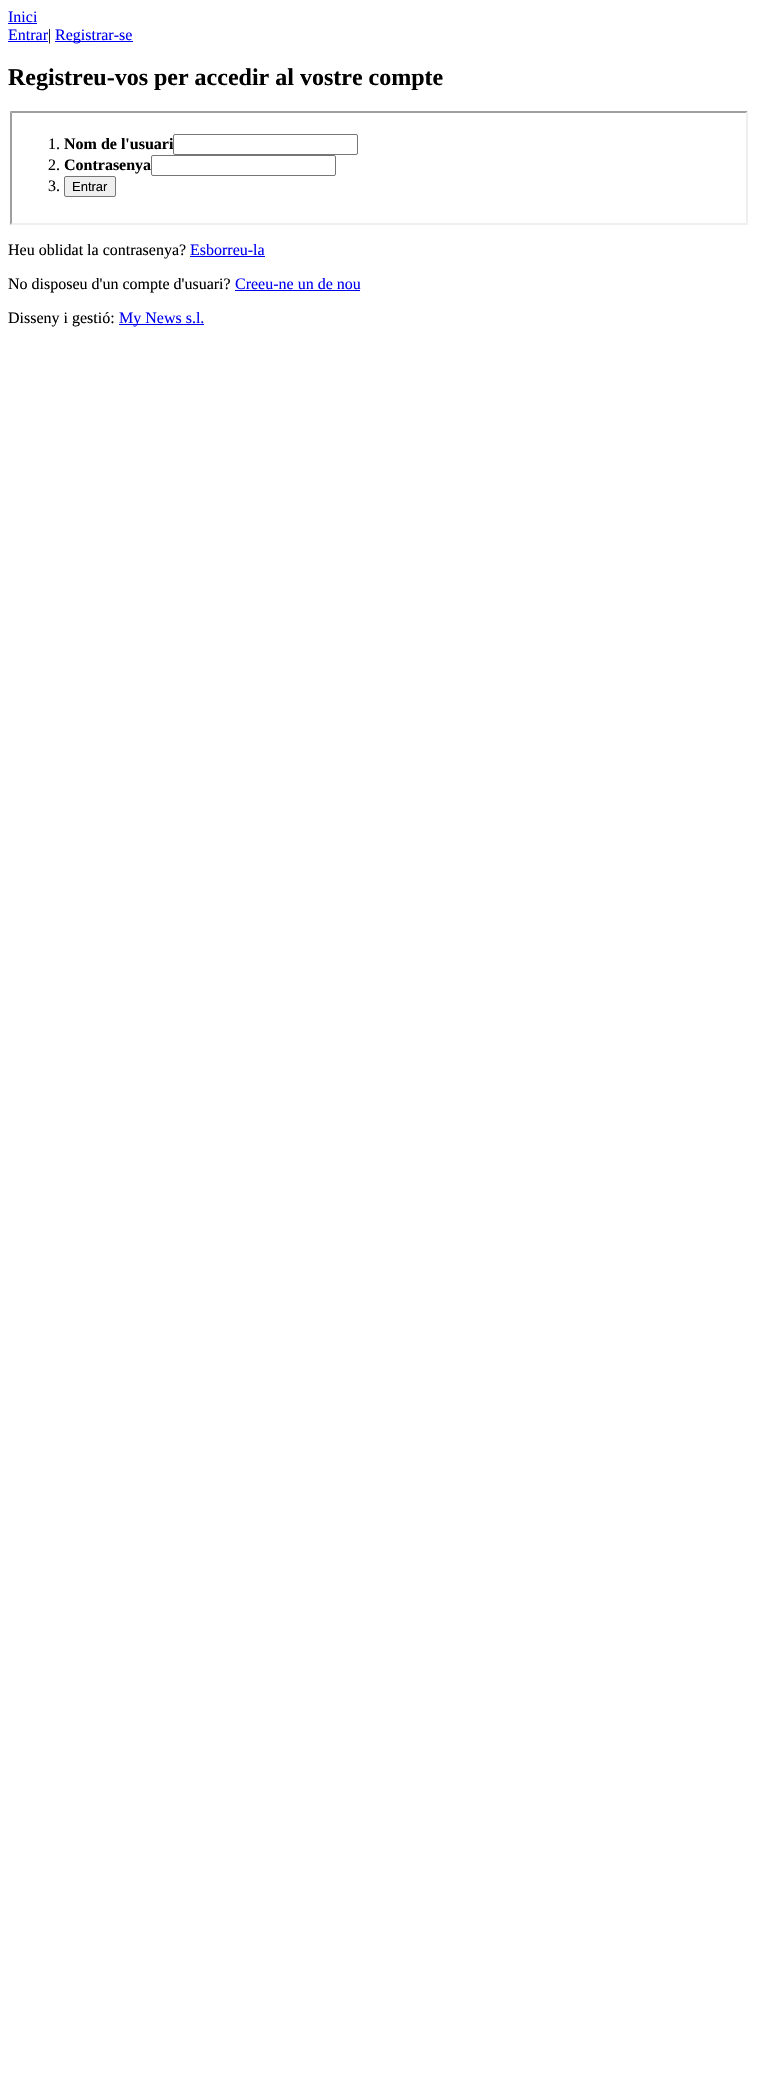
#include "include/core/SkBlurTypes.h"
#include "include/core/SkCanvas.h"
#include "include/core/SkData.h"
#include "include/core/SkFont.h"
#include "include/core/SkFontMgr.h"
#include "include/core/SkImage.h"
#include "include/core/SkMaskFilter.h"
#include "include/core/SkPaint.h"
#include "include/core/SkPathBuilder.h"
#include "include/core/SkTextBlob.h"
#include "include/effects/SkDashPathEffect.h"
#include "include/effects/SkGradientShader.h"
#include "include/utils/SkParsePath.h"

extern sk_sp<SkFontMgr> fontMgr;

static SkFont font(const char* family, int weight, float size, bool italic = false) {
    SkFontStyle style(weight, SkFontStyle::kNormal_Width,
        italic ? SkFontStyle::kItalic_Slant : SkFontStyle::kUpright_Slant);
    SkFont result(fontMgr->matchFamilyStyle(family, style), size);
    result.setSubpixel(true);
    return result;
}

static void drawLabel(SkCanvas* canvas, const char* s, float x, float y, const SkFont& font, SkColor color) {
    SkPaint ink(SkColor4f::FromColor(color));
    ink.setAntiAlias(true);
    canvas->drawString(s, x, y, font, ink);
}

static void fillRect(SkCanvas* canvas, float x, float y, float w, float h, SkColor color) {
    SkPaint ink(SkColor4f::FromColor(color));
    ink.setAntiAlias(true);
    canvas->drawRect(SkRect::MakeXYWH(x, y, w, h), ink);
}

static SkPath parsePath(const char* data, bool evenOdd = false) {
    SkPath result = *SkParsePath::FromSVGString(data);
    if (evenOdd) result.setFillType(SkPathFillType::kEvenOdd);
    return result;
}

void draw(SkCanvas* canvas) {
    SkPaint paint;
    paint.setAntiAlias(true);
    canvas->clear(0xFFFFFFFF);
    SkFont font1 = font("Liberation Serif", 400, 16);
    drawLabel(canvas, "Inici", 8, 22, font1, 0xFF0000EE);
    fillRect(canvas, 8, 23, 29, 1, 0xFF0000EE);
    drawLabel(canvas, "Entrar", 8, 40, font1, 0xFF0000EE);
    fillRect(canvas, 8, 41, 40, 1, 0xFF0000EE);
    drawLabel(canvas, "|", 48, 40, font1, 0xFF000000);
    fillRect(canvas, 55, 41, 78, 1, 0xFF0000EE);
    drawLabel(canvas, "Registrar-se", 55, 40, font1, 0xFF0000EE);
    SkFont font2 = font("Liberation Serif", 700, 24);
    drawLabel(canvas, "Registreu-vos per accedir al vostre compte", 8, 85, font2, 0xFF000000);
    paint.setColor(0xFF9F9F9F);
    canvas->drawPath(parsePath("M10 111H748L746 113H12Z"), paint);
    paint.setColor(0xFFEFEFEF);
    canvas->drawPath(parsePath("M748 111V225L746 223V113Z"), paint);
    canvas->drawPath(parsePath("M748 225H10L12 223H746Z"), paint);
    paint.setColor(0xFF9F9F9F);
    canvas->drawPath(parsePath("M10 225V111L12 113V223Z"), paint);
    drawLabel(canvas, "1.", 48, 149, font1, 0xFF000000);
    SkFont font3 = font("Liberation Serif", 700, 16);
    drawLabel(canvas, "Nom de l'usuari", 64, 149, font3, 0xFF000000);
    paint.setColor(0xFFFFFFFF);
    canvas->drawRoundRect(SkRect::MakeXYWH(173.5f, 134.5f, 184, 20), 1.5f, 1.5f, paint);
    paint.setStroke(true);
    paint.setStrokeWidth(1);
    paint.setColor(0xFF767676);
    canvas->drawRoundRect(SkRect::MakeXYWH(173.5f, 134.5f, 184, 20), 1.5f, 1.5f, paint);
    drawLabel(canvas, "2.", 48, 170, font1, 0xFF000000);
    drawLabel(canvas, "Contrasenya", 64, 170, font3, 0xFF000000);
    canvas->drawRoundRect(SkRect::MakeXYWH(151.5f, 155.5f, 184, 20), 1.5f, 1.5f, paint);
    drawLabel(canvas, "3.", 48, 191, font1, 0xFF000000);
    paint.setStroke(false);
    paint.setColor(0xFFEFEFEF);
    canvas->drawRoundRect(SkRect::MakeXYWH(64.5f, 176.5f, 51, 20), 1.5f, 1.5f, paint);
    paint.setStroke(true);
    paint.setColor(0xFF767676);
    canvas->drawRoundRect(SkRect::MakeXYWH(64.5f, 176.5f, 51, 20), 1.5f, 1.5f, paint);
    SkFont font4 = font("Liberation Sans", 400, 13);
    drawLabel(canvas, "Entrar", 72, 191, font4, 0xFF000000);
    drawLabel(canvas, "Heu oblidat la contrasenya?", 8, 255, font1, 0xFF000000);
    drawLabel(canvas, "Esborreu-la", 190, 255, font1, 0xFF0000EE);
    fillRect(canvas, 190, 256, 75, 1, 0xFF0000EE);
    drawLabel(canvas, "No disposeu d'un compte d'usuari?", 8, 289, font1, 0xFF000000);
    drawLabel(canvas, "Creeu-ne un de nou", 235, 289, font1, 0xFF0000EE);
    fillRect(canvas, 235, 290, 125, 1, 0xFF0000EE);
    drawLabel(canvas, "Disseny i gestió:", 8, 323, font1, 0xFF000000);
    fillRect(canvas, 119, 324, 85, 1, 0xFF0000EE);
    drawLabel(canvas, "My News s.l.", 119, 323, font1, 0xFF0000EE);
}
